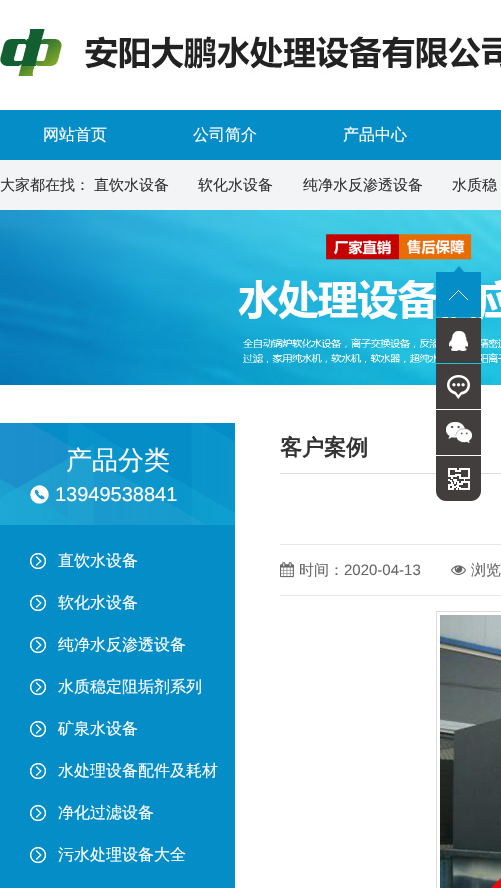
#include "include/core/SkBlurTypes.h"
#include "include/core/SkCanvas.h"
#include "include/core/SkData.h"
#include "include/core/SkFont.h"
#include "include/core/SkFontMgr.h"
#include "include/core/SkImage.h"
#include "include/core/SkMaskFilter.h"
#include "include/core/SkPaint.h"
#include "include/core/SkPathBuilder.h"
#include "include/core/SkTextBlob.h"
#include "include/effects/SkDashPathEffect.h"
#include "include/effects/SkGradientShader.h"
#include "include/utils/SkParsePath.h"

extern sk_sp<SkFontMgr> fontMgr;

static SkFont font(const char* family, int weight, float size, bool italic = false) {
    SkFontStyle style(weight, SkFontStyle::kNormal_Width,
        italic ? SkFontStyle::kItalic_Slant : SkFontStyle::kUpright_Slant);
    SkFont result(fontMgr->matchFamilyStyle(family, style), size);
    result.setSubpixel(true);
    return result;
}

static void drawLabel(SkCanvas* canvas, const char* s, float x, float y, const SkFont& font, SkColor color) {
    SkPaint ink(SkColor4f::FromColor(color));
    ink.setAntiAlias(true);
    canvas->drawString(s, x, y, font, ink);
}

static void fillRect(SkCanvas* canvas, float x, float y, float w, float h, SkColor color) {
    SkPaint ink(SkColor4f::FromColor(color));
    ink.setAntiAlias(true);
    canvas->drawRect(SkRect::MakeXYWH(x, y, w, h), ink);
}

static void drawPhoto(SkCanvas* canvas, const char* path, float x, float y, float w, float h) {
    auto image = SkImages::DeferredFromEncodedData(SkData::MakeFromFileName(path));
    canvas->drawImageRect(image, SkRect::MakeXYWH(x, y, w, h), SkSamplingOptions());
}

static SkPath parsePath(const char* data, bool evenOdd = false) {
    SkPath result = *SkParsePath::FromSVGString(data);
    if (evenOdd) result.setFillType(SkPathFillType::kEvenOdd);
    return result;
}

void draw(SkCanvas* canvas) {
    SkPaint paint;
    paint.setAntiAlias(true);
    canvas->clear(0xFFFFFFFF);
    drawPhoto(canvas, "assets/img1.png", 0, 28, 501, 48);
    fillRect(canvas, 0, 110, 501, 50, 0xFF058DC7);
    SkFont font1 = font("WenQuanYi Zen Hei", 500, 16);
    drawLabel(canvas, "网站首页", 43, 140, font1, 0xFFFFFFFF);
    drawLabel(canvas, "公司简介", 193, 140, font1, 0xFFFFFFFF);
    drawLabel(canvas, "产品中心", 343, 140, font1, 0xFFFFFFFF);
    fillRect(canvas, 0, 160, 501, 50, 0xFFF3F4F6);
    SkFont font2 = font("WenQuanYi Zen Hei", 500, 15);
    drawLabel(canvas, "大家都在找：", 0, 190, font2, 0xFF333333);
    drawLabel(canvas, "直饮水设备", 94, 190, font2, 0xFF333333);
    drawLabel(canvas, "软化水设备", 198, 190, font2, 0xFF333333);
    drawLabel(canvas, "纯净水反渗透设备", 303, 190, font2, 0xFF333333);
    drawLabel(canvas, "水质稳", 452, 190, font2, 0xFF333333);
    drawPhoto(canvas, "assets/img2.png", 0, 210, 501, 175);
    drawPhoto(canvas, "assets/img3.png", 454, 266, 10, 6);
    fillRect(canvas, 436, 272, 45, 45, 0xFF058DC7);
    drawPhoto(canvas, "assets/img4.png", 449, 290, 19, 10);
    fillRect(canvas, 436, 318, 45, 45, 0xFF423E3D);
    drawPhoto(canvas, "assets/img5.png", 449, 331, 19, 20);
    fillRect(canvas, 436, 364, 45, 45, 0xFF423E3D);
    drawPhoto(canvas, "assets/img6.png", 447, 375, 23, 24);
    fillRect(canvas, 436, 410, 45, 45, 0xFF423E3D);
    drawPhoto(canvas, "assets/img7.png", 446, 422, 26, 21);
    fillRect(canvas, 280, 473, 221, 1, 0xFFDEDEDE);
    paint.setColor(0xFF423E3D);
    canvas->drawPath(parsePath("M436 456H481V491C481 496.5 476.5 501 471 501H446C440.5 501 436 496.5 436 491Z"), paint);
    drawPhoto(canvas, "assets/img8.png", 448, 468, 22, 22);
    fillRect(canvas, 0, 525, 235, 363, 0xFF058DC7);
    drawPhoto(canvas, "assets/img9.png", 0, 423, 235, 102);
    SkFont font3 = font("WenQuanYi Zen Hei", 500, 26);
    drawLabel(canvas, "产品分类", 66, 469, font3, 0xFFFFFFFF);
    drawPhoto(canvas, "assets/img10.png", 30, 485, 19, 19);
    SkFont font4 = font("Liberation Sans", 400, 20);
    drawLabel(canvas, "13949538841", 55, 501, font4, 0xFFFFFFFF);
    drawPhoto(canvas, "assets/img11.png", 30, 553, 16, 16);
    drawLabel(canvas, "直饮水设备", 58, 566, font1, 0xFFFFFFFF);
    drawPhoto(canvas, "assets/img11.png", 30, 595, 16, 16);
    drawLabel(canvas, "软化水设备", 58, 608, font1, 0xFFFFFFFF);
    drawPhoto(canvas, "assets/img11.png", 30, 637, 16, 16);
    drawLabel(canvas, "纯净水反渗透设备", 58, 650, font1, 0xFFFFFFFF);
    drawPhoto(canvas, "assets/img11.png", 30, 679, 16, 16);
    drawLabel(canvas, "水质稳定阻垢剂系列", 58, 692, font1, 0xFFFFFFFF);
    drawPhoto(canvas, "assets/img11.png", 30, 721, 16, 16);
    drawLabel(canvas, "矿泉水设备", 58, 734, font1, 0xFFFFFFFF);
    drawPhoto(canvas, "assets/img11.png", 30, 763, 16, 16);
    drawLabel(canvas, "水处理设备配件及耗材", 58, 776, font1, 0xFFFFFFFF);
    drawPhoto(canvas, "assets/img11.png", 30, 805, 16, 16);
    drawLabel(canvas, "净化过滤设备", 58, 818, font1, 0xFFFFFFFF);
    drawPhoto(canvas, "assets/img11.png", 30, 847, 16, 16);
    drawLabel(canvas, "污水处理设备大全", 58, 860, font1, 0xFFFFFFFF);
    SkFont font5 = font("WenQuanYi Zen Hei", 700, 22);
    drawLabel(canvas, "客户案例", 280, 455, font5, 0xFF333333);
    fillRect(canvas, 280, 544, 221, 1, 0xFFE6E6E6);
    fillRect(canvas, 280, 595, 221, 1, 0xFFE6E6E6);
    drawPhoto(canvas, "assets/img12.png", 280, 562, 14, 16);
    drawLabel(canvas, "时间：", 299, 575, font2, 0xFF666666);
    SkFont font6 = font("Liberation Sans", 400, 15);
    drawLabel(canvas, "2020-04-13", 344, 575, font6, 0xFF666666);
    drawPhoto(canvas, "assets/img13.png", 451, 565, 15, 10);
    drawLabel(canvas, "浏览", 471, 575, font2, 0xFF666666);
    paint.setStroke(true);
    paint.setStrokeWidth(1);
    paint.setColor(0xFFDCDCDC);
    canvas->drawRect(SkRect::MakeXYWH(436.5f, 611.5f, 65, 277), paint);
    drawPhoto(canvas, "assets/img14.png", 440, 615, 61, 273);
    paint.setStroke(false);
    paint.setColor(0xFFFF0000);
    canvas->drawPath(parsePath("M501 878V888L496 883Z"), paint);
    canvas->drawPath(parsePath("M501 888H491L496 883Z"), paint);
}
